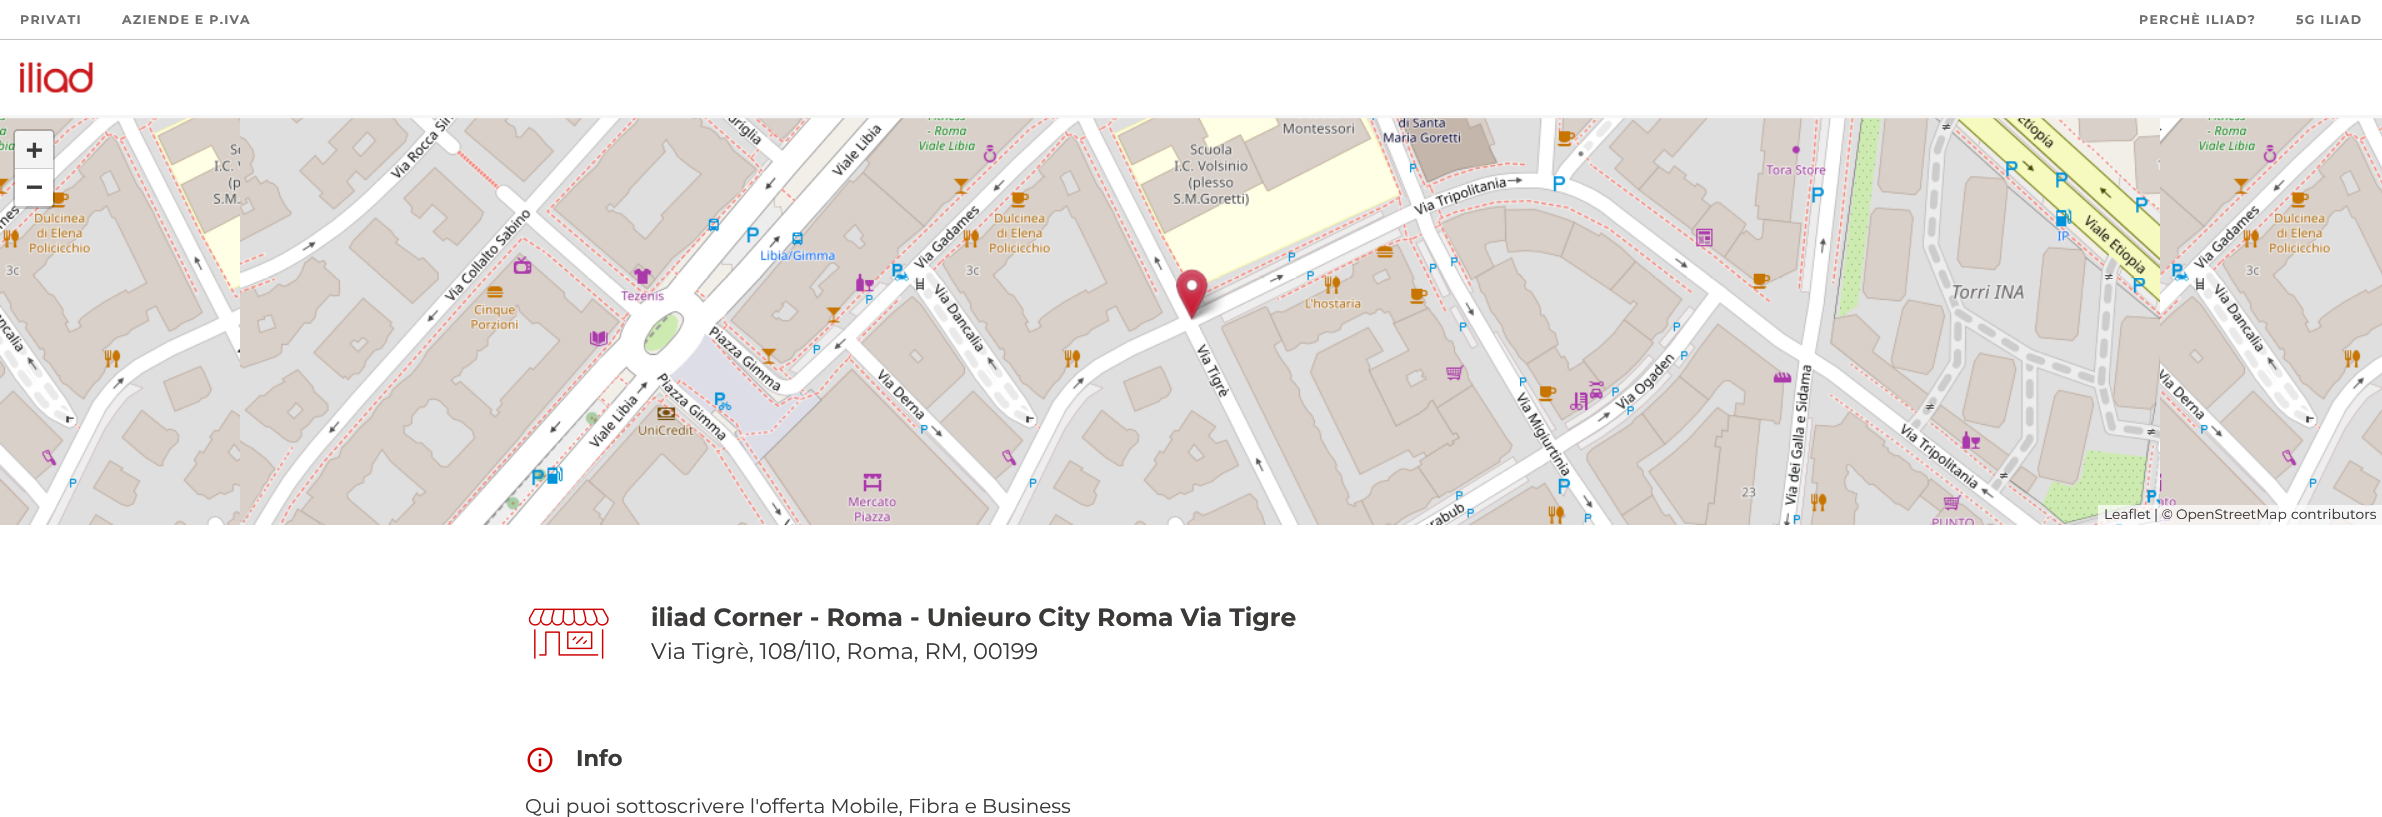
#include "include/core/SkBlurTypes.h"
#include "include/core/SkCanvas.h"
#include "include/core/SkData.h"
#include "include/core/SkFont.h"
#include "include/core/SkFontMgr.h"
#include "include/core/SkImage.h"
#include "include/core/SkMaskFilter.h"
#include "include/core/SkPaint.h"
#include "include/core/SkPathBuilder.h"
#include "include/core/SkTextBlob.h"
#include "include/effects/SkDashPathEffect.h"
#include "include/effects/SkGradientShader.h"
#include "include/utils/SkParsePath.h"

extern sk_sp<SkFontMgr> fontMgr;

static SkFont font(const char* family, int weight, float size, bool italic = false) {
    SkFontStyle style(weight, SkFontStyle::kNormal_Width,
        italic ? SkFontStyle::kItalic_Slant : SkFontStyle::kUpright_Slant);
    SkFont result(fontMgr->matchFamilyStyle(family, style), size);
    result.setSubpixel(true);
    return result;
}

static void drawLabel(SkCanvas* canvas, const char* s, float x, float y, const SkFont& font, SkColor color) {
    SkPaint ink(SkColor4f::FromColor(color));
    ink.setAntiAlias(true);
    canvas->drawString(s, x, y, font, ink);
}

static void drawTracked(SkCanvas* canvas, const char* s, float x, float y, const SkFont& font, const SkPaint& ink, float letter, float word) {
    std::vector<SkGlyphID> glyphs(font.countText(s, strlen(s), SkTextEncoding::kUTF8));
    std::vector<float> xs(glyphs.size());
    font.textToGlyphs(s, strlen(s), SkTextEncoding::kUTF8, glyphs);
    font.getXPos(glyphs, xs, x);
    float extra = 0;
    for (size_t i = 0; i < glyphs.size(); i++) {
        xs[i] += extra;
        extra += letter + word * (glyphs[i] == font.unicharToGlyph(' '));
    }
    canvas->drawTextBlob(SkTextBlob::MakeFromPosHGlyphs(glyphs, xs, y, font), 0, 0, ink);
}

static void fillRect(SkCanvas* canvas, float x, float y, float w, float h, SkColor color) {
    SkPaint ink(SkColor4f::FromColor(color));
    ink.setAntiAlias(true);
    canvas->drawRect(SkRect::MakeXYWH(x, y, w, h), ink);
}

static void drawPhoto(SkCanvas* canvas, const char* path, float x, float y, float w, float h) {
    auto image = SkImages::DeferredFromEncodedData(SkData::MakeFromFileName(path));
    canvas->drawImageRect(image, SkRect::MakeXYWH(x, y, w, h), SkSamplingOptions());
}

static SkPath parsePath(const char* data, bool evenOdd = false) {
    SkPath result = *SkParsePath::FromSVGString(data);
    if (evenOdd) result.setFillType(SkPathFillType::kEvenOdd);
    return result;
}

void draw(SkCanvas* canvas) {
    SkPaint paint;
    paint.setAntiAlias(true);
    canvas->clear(0xFFFFFFFF);
    fillRect(canvas, 0, 39, 2382, 1, 0xFFC4C4C4);
    SkFont font1 = font("Montserrat", 100, 12.5f);
    paint.setColor(0xFF6F6F6F);
    drawTracked(canvas, "PRIVATI", 20, 24, font1, paint, 1.25f, 0);
    drawTracked(canvas, "AZIENDE E P.IVA", 122, 24, font1, paint, 1.25f, 0);
    drawTracked(canvas, "PERCHÈ ILIAD?", 2139, 24, font1, paint, 1.25f, 0);
    drawTracked(canvas, "5G ILIAD", 2296, 24, font1, paint, 1.25f, 0);
    drawPhoto(canvas, "assets/img2.png", 0, 116, 240, 162);
    drawPhoto(canvas, "assets/img3.png", 240, 117, 320, 161);
    drawPhoto(canvas, "assets/img4.png", 560, 117, 320, 161);
    drawPhoto(canvas, "assets/img5.png", 880, 117, 320, 161);
    drawPhoto(canvas, "assets/img6.png", 1200, 117, 320, 161);
    drawPhoto(canvas, "assets/img7.png", 1520, 117, 320, 161);
    drawPhoto(canvas, "assets/img8.png", 1840, 117, 320, 161);
    drawPhoto(canvas, "assets/img9.png", 2160, 117, 222, 161);
    canvas->save();
    canvas->clipRect(SkRect::MakeXYWH(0, 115, 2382, 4));
    paint.setColor(0xFFF6F6F6);
    paint.setMaskFilter(SkMaskFilter::MakeBlur(kNormal_SkBlurStyle, 0.5f));
    canvas->drawRect(SkRect::MakeXYWH(0, 43, 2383, 75), paint);
    paint.setMaskFilter(nullptr);
    canvas->restore();
    drawPhoto(canvas, "assets/img1.png", 20, 62, 74, 31);
    drawPhoto(canvas, "assets/img10.png", 0, 278, 240, 247);
    drawPhoto(canvas, "assets/img11.png", 240, 278, 320, 247);
    drawPhoto(canvas, "assets/img12.png", 560, 278, 320, 247);
    drawPhoto(canvas, "assets/img13.png", 880, 278, 320, 247);
    drawPhoto(canvas, "assets/img14.png", 1200, 278, 320, 247);
    drawPhoto(canvas, "assets/img15.png", 1520, 278, 320, 247);
    drawPhoto(canvas, "assets/img16.png", 1840, 278, 320, 247);
    drawPhoto(canvas, "assets/img17.png", 2160, 278, 222, 247);
    drawPhoto(canvas, "assets/img19.png", 1187, 285, 38, 36);
    drawPhoto(canvas, "assets/img18.png", 1176, 268, 33, 53);
    paint.setStroke(true);
    paint.setStrokeWidth(3);
    paint.setColor(0x33000000);
    canvas->drawRoundRect(SkRect::MakeXYWH(14.5f, 130.5f, 39, 77), 3.5f, 3.5f, paint);
    paint.setStroke(false);
    paint.setColor(0xFFF4F4F4);
    canvas->drawPath(parsePath("M17.5 131H50.5C52 131 53 132 53 133.5V169H15V133.5C15 132 16 131 17.5 131Z"), paint);
    fillRect(canvas, 15, 168, 38, 1, 0xFFCCCCCC);
    SkFont font2 = font("DejaVu Sans Mono", 700, 28);
    drawLabel(canvas, "+", 26, 159, font2, 0xFF3C3A39);
    paint.setColor(0xFFFFFFFF);
    canvas->drawPath(parsePath("M15 169H53V203.5C53 205 52 206 50.5 206H17.5C16 206 15 205 15 203.5Z"), paint);
    drawLabel(canvas, "−", 26, 196, font2, 0xFF3C3A39);
    fillRect(canvas, 2098, 505, 284, 20, 0xB3FFFFFF);
    SkFont font3 = font("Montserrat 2", 100, 13.75f);
    drawLabel(canvas, "Leaflet", 2104, 519, font3, 0xFF3C3A39);
    drawLabel(canvas, "| ©", 2154, 519, font3, 0xFF333333);
    drawLabel(canvas, "OpenStreetMap", 2176, 519, font3, 0xFF3C3A39);
    drawLabel(canvas, "contributors", 2291, 519, font3, 0xFF333333);
    drawPhoto(canvas, "assets/img20.png", 528, 608, 81, 51);
    SkFont font4 = font("Montserrat", 100, 25);
    drawLabel(canvas, "iliad Corner - Roma - Unieuro City Roma Via Tigre", 651, 626, font4, 0xFF3C3A39);
    SkFont font5 = font("Montserrat 2", 100, 22.5f);
    drawLabel(canvas, "Via Tigrè, 108/110, Roma, RM, 00199", 651, 659, font5, 0xFF3C3A39);
    drawPhoto(canvas, "assets/img21.png", 527, 747, 26, 26);
    SkFont font6 = font("Montserrat", 100, 22.5f);
    drawLabel(canvas, "Info", 576, 766, font6, 0xFF3C3A39);
    SkFont font7 = font("Montserrat 2", 100, 20);
    drawLabel(canvas, "Qui puoi sottoscrivere l'offerta Mobile, Fibra e Business", 525, 813, font7, 0xFF3C3A39);
}
